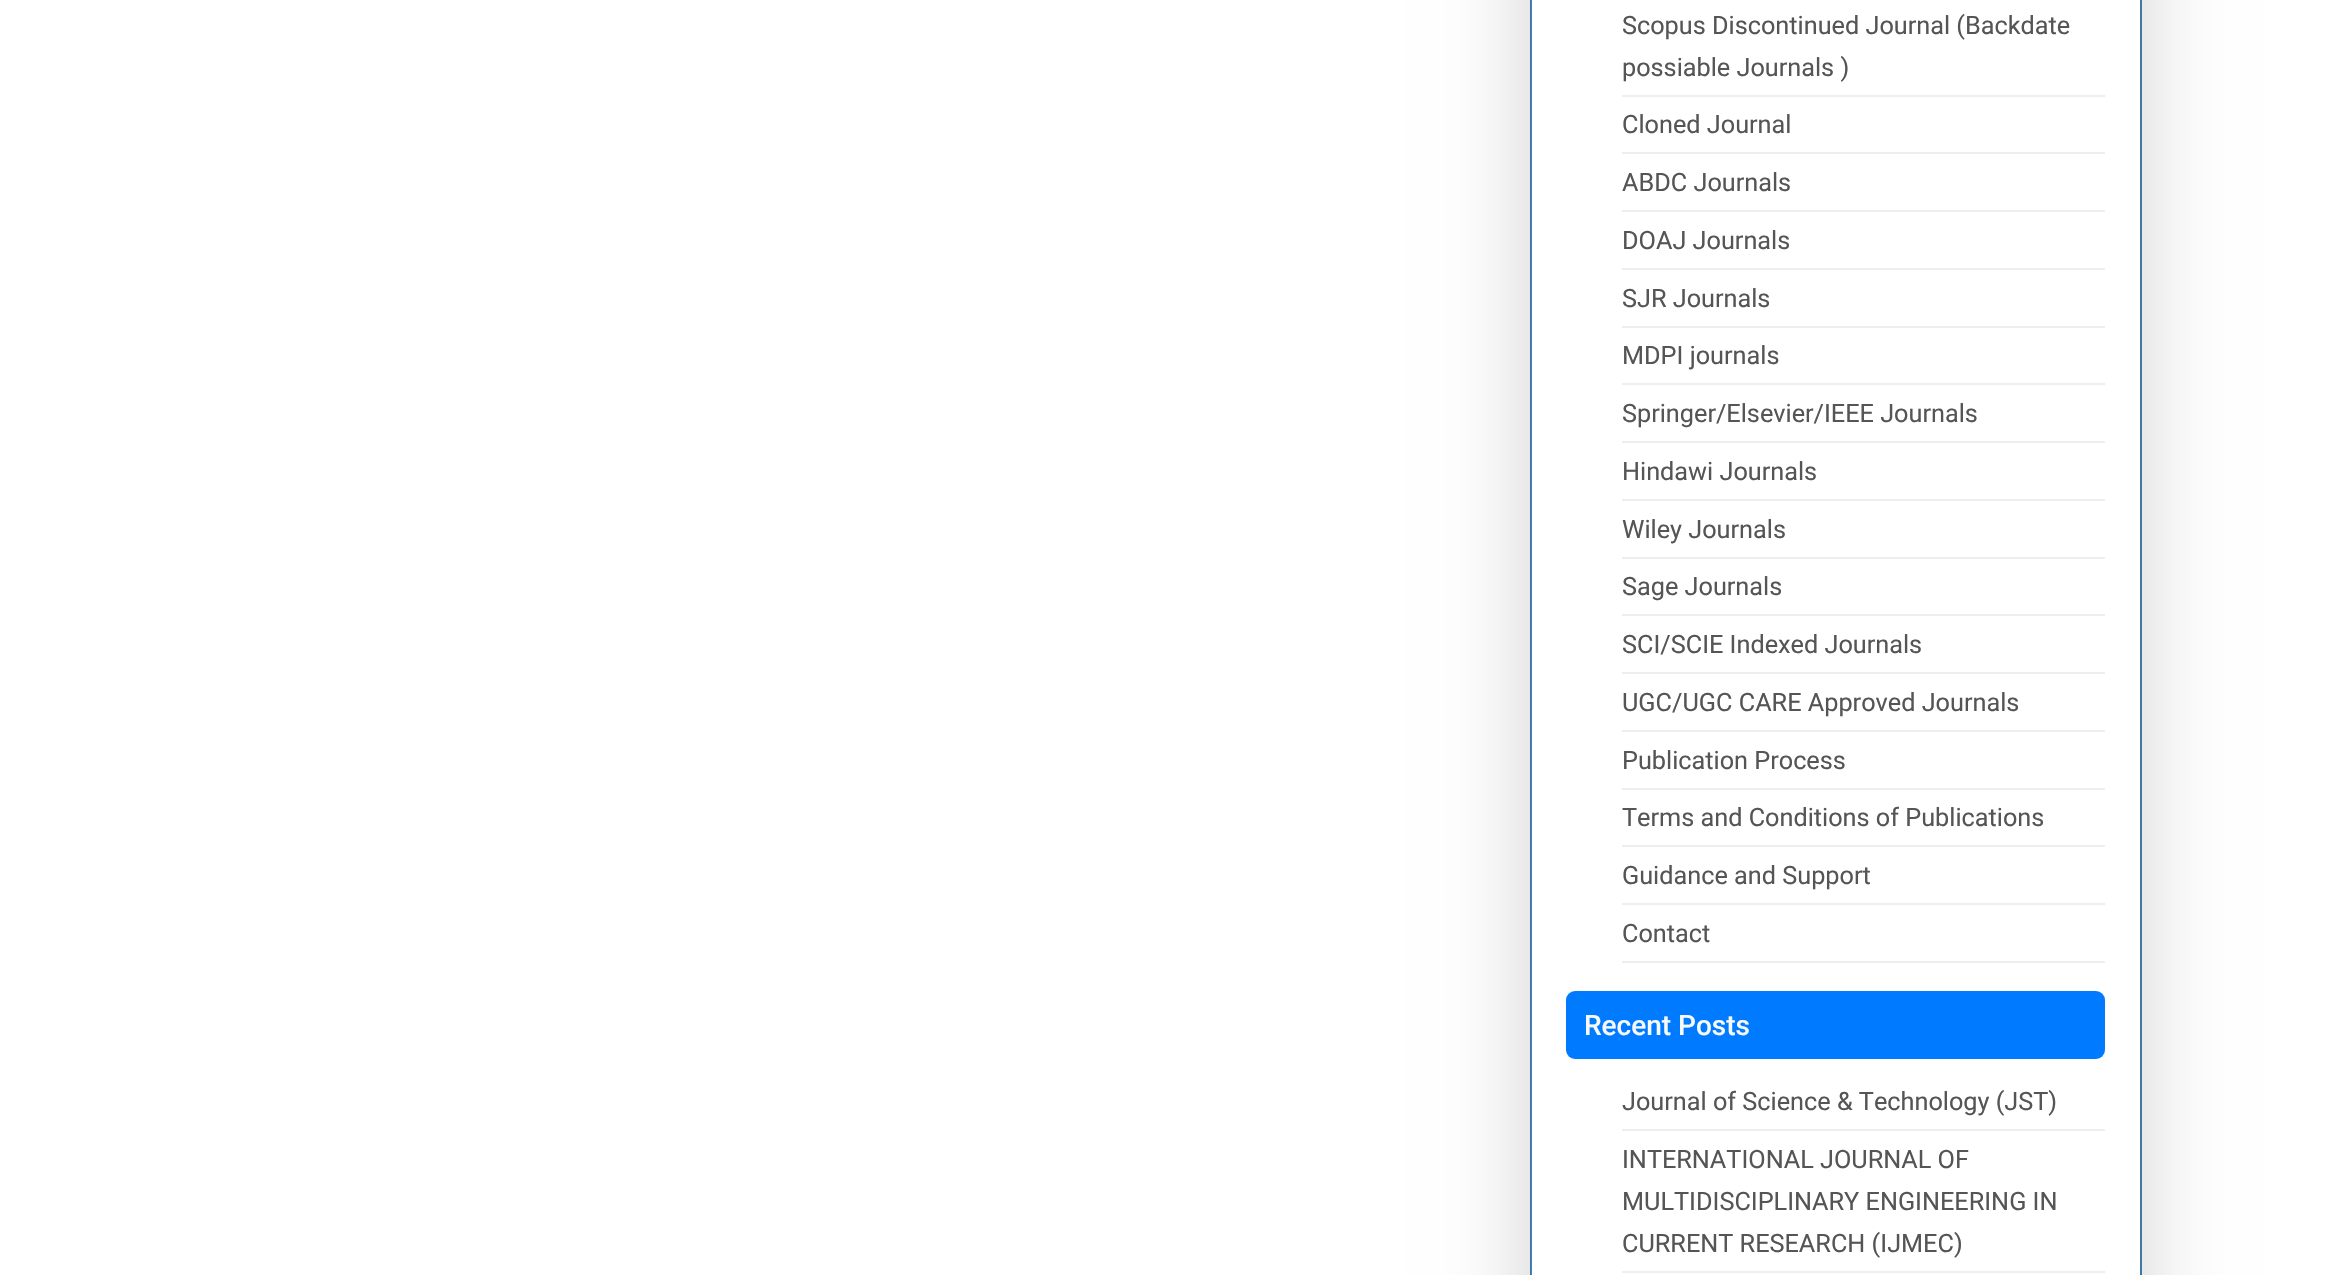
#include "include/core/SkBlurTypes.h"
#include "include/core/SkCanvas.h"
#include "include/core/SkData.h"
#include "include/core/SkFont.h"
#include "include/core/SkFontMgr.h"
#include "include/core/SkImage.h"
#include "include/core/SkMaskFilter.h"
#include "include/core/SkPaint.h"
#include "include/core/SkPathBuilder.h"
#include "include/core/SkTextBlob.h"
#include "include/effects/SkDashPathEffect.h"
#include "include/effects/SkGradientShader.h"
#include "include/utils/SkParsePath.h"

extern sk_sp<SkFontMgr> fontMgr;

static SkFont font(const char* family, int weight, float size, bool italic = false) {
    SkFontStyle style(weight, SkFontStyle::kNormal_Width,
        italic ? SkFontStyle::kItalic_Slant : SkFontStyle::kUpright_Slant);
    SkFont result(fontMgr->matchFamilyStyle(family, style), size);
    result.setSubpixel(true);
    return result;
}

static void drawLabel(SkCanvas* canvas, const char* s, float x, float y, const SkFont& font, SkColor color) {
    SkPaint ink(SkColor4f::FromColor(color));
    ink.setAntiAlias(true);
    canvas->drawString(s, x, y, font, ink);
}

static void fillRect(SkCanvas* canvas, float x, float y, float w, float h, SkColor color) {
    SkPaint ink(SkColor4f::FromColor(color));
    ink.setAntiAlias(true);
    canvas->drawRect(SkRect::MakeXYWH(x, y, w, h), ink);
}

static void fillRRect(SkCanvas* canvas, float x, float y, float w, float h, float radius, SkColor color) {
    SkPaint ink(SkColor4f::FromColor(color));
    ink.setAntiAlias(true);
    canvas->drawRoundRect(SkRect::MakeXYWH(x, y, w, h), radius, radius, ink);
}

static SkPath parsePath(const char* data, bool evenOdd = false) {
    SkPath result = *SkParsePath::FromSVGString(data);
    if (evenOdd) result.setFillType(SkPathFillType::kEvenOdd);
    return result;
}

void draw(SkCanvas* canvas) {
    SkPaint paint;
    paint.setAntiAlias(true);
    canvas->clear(0xFFFFFFFF);
    paint.setStroke(true);
    paint.setStrokeWidth(2);
    paint.setColor(0xFF4682B4);
    canvas->drawRect(SkRect::MakeXYWH(1531, -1, 610, 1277), paint);
    canvas->save();
    canvas->clipPath(parsePath("M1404 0H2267V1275H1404ZM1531-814H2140V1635H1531Z", true), true);
    paint.setStroke(false);
    paint.setColor(0x2E000000);
    paint.setMaskFilter(SkMaskFilter::MakeBlur(kNormal_SkBlurStyle, 42));
    canvas->drawRect(SkRect::MakeXYWH(1531, -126, 609, 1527), paint);
    paint.setMaskFilter(nullptr);
    canvas->restore();
    fillRect(canvas, 1622, 95, 483, 2, 0xFFEEEEEE);
    SkFont font1 = font("Roboto", 400, 25.25f);
    drawLabel(canvas, "Scopus Discontinued Journal (Backdate", 1622, 34, font1, 0xFF555555);
    drawLabel(canvas, "possiable Journals )", 1622, 76, font1, 0xFF555555);
    fillRect(canvas, 1622, 152, 483, 2, 0xFFEEEEEE);
    drawLabel(canvas, "Cloned Journal", 1622, 133, font1, 0xFF555555);
    fillRect(canvas, 1622, 210, 483, 2, 0xFFEEEEEE);
    drawLabel(canvas, "ABDC Journals", 1622, 191, font1, 0xFF555555);
    fillRect(canvas, 1622, 268, 483, 2, 0xFFEEEEEE);
    drawLabel(canvas, "DOAJ Journals", 1622, 249, font1, 0xFF555555);
    fillRect(canvas, 1622, 326, 483, 2, 0xFFEEEEEE);
    drawLabel(canvas, "SJR Journals", 1622, 307, font1, 0xFF555555);
    fillRect(canvas, 1622, 383, 483, 2, 0xFFEEEEEE);
    drawLabel(canvas, "MDPI journals", 1622, 364, font1, 0xFF555555);
    fillRect(canvas, 1622, 441, 483, 2, 0xFFEEEEEE);
    drawLabel(canvas, "Springer/Elsevier/IEEE Journals", 1622, 422, font1, 0xFF555555);
    fillRect(canvas, 1622, 499, 483, 2, 0xFFEEEEEE);
    drawLabel(canvas, "Hindawi Journals", 1622, 480, font1, 0xFF555555);
    fillRect(canvas, 1622, 557, 483, 2, 0xFFEEEEEE);
    drawLabel(canvas, "Wiley Journals", 1622, 538, font1, 0xFF555555);
    fillRect(canvas, 1622, 614, 483, 2, 0xFFEEEEEE);
    drawLabel(canvas, "Sage Journals", 1622, 595, font1, 0xFF555555);
    fillRect(canvas, 1622, 672, 483, 2, 0xFFEEEEEE);
    drawLabel(canvas, "SCI/SCIE Indexed Journals", 1622, 653, font1, 0xFF555555);
    fillRect(canvas, 1622, 730, 483, 2, 0xFFEEEEEE);
    drawLabel(canvas, "UGC/UGC CARE Approved Journals", 1622, 711, font1, 0xFF555555);
    fillRect(canvas, 1622, 788, 483, 2, 0xFFEEEEEE);
    drawLabel(canvas, "Publication Process", 1622, 769, font1, 0xFF555555);
    fillRect(canvas, 1622, 845, 483, 2, 0xFFEEEEEE);
    drawLabel(canvas, "Terms and Conditions of Publications", 1622, 826, font1, 0xFF555555);
    fillRect(canvas, 1622, 903, 483, 2, 0xFFEEEEEE);
    drawLabel(canvas, "Guidance and Support", 1622, 884, font1, 0xFF555555);
    fillRect(canvas, 1622, 961, 483, 2, 0xFFEEEEEE);
    drawLabel(canvas, "Contact", 1622, 942, font1, 0xFF555555);
    fillRRect(canvas, 1566, 991, 539, 68, 9, 0xFF007BFF);
    SkFont font2 = font("Roboto", 500, 28);
    drawLabel(canvas, "Recent Posts", 1584, 1035, font2, 0xFFF8F9FA);
    fillRect(canvas, 1622, 1129, 483, 2, 0xFFEEEEEE);
    drawLabel(canvas, "Journal of Science & Technology (JST)", 1622, 1110, font1, 0xFF555555);
    fillRect(canvas, 1622, 1271, 483, 2, 0xFFEEEEEE);
    drawLabel(canvas, "INTERNATIONAL JOURNAL OF", 1622, 1168, font1, 0xFF555555);
    drawLabel(canvas, "MULTIDISCIPLINARY ENGINEERING IN", 1622, 1210, font1, 0xFF555555);
    drawLabel(canvas, "CURRENT RESEARCH (IJMEC)", 1622, 1252, font1, 0xFF555555);
}
